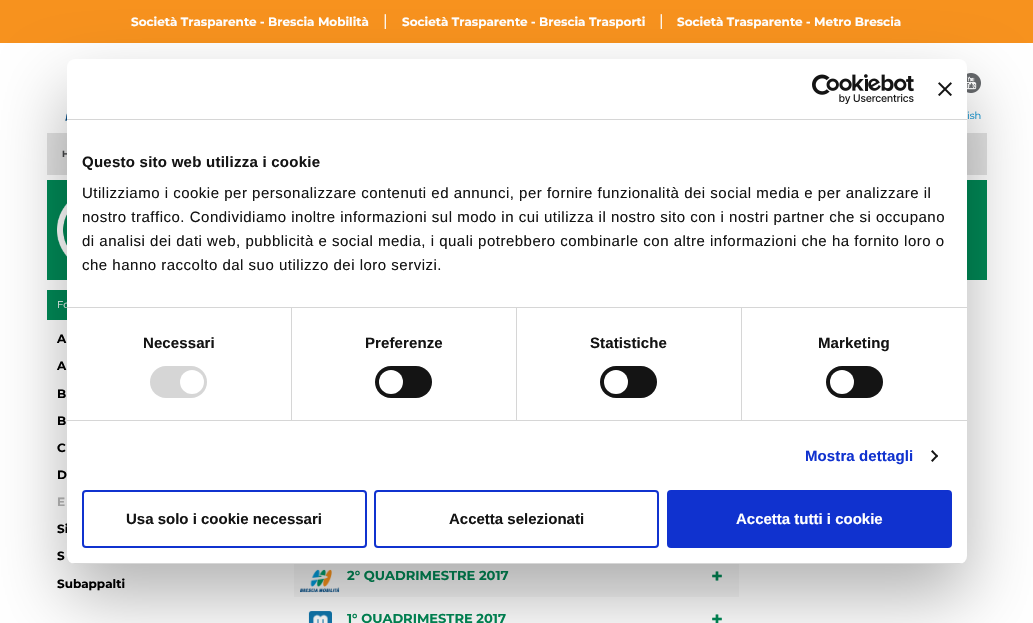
#include "include/core/SkBlurTypes.h"
#include "include/core/SkCanvas.h"
#include "include/core/SkData.h"
#include "include/core/SkFont.h"
#include "include/core/SkFontMgr.h"
#include "include/core/SkImage.h"
#include "include/core/SkMaskFilter.h"
#include "include/core/SkPaint.h"
#include "include/core/SkPathBuilder.h"
#include "include/core/SkTextBlob.h"
#include "include/effects/SkDashPathEffect.h"
#include "include/effects/SkGradientShader.h"
#include "include/utils/SkParsePath.h"

extern sk_sp<SkFontMgr> fontMgr;

static SkFont font(const char* family, int weight, float size, bool italic = false) {
    SkFontStyle style(weight, SkFontStyle::kNormal_Width,
        italic ? SkFontStyle::kItalic_Slant : SkFontStyle::kUpright_Slant);
    SkFont result(fontMgr->matchFamilyStyle(family, style), size);
    result.setSubpixel(true);
    return result;
}

static void drawLabel(SkCanvas* canvas, const char* s, float x, float y, const SkFont& font, SkColor color) {
    SkPaint ink(SkColor4f::FromColor(color));
    ink.setAntiAlias(true);
    canvas->drawString(s, x, y, font, ink);
}

static void drawTracked(SkCanvas* canvas, const char* s, float x, float y, const SkFont& font, const SkPaint& ink, float letter, float word) {
    std::vector<SkGlyphID> glyphs(font.countText(s, strlen(s), SkTextEncoding::kUTF8));
    std::vector<float> xs(glyphs.size());
    font.textToGlyphs(s, strlen(s), SkTextEncoding::kUTF8, glyphs);
    font.getXPos(glyphs, xs, x);
    float extra = 0;
    for (size_t i = 0; i < glyphs.size(); i++) {
        xs[i] += extra;
        extra += letter + word * (glyphs[i] == font.unicharToGlyph(' '));
    }
    canvas->drawTextBlob(SkTextBlob::MakeFromPosHGlyphs(glyphs, xs, y, font), 0, 0, ink);
}

static void fillRect(SkCanvas* canvas, float x, float y, float w, float h, SkColor color) {
    SkPaint ink(SkColor4f::FromColor(color));
    ink.setAntiAlias(true);
    canvas->drawRect(SkRect::MakeXYWH(x, y, w, h), ink);
}

static void fillRRect(SkCanvas* canvas, float x, float y, float w, float h, float radius, SkColor color) {
    SkPaint ink(SkColor4f::FromColor(color));
    ink.setAntiAlias(true);
    canvas->drawRoundRect(SkRect::MakeXYWH(x, y, w, h), radius, radius, ink);
}

static void drawPhoto(SkCanvas* canvas, const char* path, float x, float y, float w, float h) {
    auto image = SkImages::DeferredFromEncodedData(SkData::MakeFromFileName(path));
    canvas->drawImageRect(image, SkRect::MakeXYWH(x, y, w, h), SkSamplingOptions());
}

static SkPath parsePath(const char* data, bool evenOdd = false) {
    SkPath result = *SkParsePath::FromSVGString(data);
    if (evenOdd) result.setFillType(SkPathFillType::kEvenOdd);
    return result;
}

void draw(SkCanvas* canvas) {
    SkPaint paint;
    paint.setAntiAlias(true);
    canvas->clear(0xFFFFFFFF);
    fillRect(canvas, 0, 0, 1033, 43, 0xFFF7921E);
    SkFont font1 = font("Montserrat", 700, 12);
    drawLabel(canvas, "Società Trasparente - Brescia Mobilità", 131, 26, font1, 0xFFFFFFFF);
    SkFont font2 = font("Montserrat", 400, 16);
    drawLabel(canvas, "|", 383, 26, font2, 0xFFFFFFFF);
    drawLabel(canvas, "Società Trasparente - Brescia Trasporti", 402, 26, font1, 0xFFFFFFFF);
    drawLabel(canvas, "|", 659, 26, font2, 0xFFFFFFFF);
    drawLabel(canvas, "Società Trasparente - Metro Brescia", 677, 26, font1, 0xFFFFFFFF);
    drawPhoto(canvas, "assets/img1.png", 64, 63, 5, 60);
    drawPhoto(canvas, "assets/img2.png", 967, 73, 14, 20);
    SkFont font3 = font("Montserrat", 400, 10);
    drawLabel(canvas, "ish", 967, 119, font3, 0xFF008FD1);
    fillRect(canvas, 47, 133, 940, 42, 0xFFE2E2E2);
    SkFont font4 = font("Montserrat", 700, 9);
    drawLabel(canvas, "H", 62, 157, font4, 0xFF444648);
    fillRect(canvas, 47, 180, 940, 100, 0xFF008956);
    drawPhoto(canvas, "assets/img3.png", 57, 203, 10, 54);
    fillRect(canvas, 47, 290, 20, 30, 0xFF008956);
    drawLabel(canvas, "Fo", 57, 308, font3, 0xFFFFFFFF);
    drawLabel(canvas, "A", 57, 343, font1, 0xFF000000);
    drawLabel(canvas, "A", 57, 370, font1, 0xFF000000);
    drawLabel(canvas, "B", 57, 398, font1, 0xFF000000);
    drawLabel(canvas, "B", 57, 425, font1, 0xFF000000);
    drawLabel(canvas, "C", 57, 452, font1, 0xFF000000);
    drawLabel(canvas, "D", 57, 479, font1, 0xFF000000);
    drawLabel(canvas, "E", 57, 506, font1, 0xFFB7B7B7);
    drawLabel(canvas, "Si", 57, 533, font1, 0xFF000000);
    drawLabel(canvas, "S", 57, 560, font1, 0xFF000000);
    drawLabel(canvas, "Subappalti", 57, 588, font1, 0xFF000000);
    fillRect(canvas, 294, 564, 445, 33, 0xFFF7F7F7);
    drawPhoto(canvas, "assets/img4.png", 300, 569, 40, 24);
    SkFont font5 = font("Montserrat", 700, 13);
    drawLabel(canvas, "2° QUADRIMESTRE 2017", 347, 580, font5, 0xFF008956);
    SkFont font6 = font("Montserrat", 700, 20);
    drawLabel(canvas, "+", 711, 583, font6, 0xFF008956);
    drawPhoto(canvas, "assets/img5.png", 308, 611, 24, 12);
    drawLabel(canvas, "1° QUADRIMESTRE 2017", 347, 623, font5, 0xFF008956);
    drawLabel(canvas, "+", 711, 626, font6, 0xFF008956);
    paint.setColor(0x4D000000);
    paint.setMaskFilter(SkMaskFilter::MakeBlur(kNormal_SkBlurStyle, 34));
    canvas->drawRoundRect(SkRect::MakeXYWH(67, 91, 900, 505), 8, 8, paint);
    paint.setMaskFilter(nullptr);
    fillRRect(canvas, 67, 59, 900, 505, 8, 0xFFFFFFFF);
    fillRect(canvas, 67, 119, 900, 1, 0xFFD6D6D6);
    drawPhoto(canvas, "assets/img6.png", 812, 74, 102, 30);
    drawPhoto(canvas, "assets/img7.png", 938, 82, 14, 14);
    fillRect(canvas, 67, 307, 900, 1, 0xFFD6D6D6);
    SkFont font7 = font("Liberation Sans", 700, 15);
    paint.setColor(0xFF141414);
    drawTracked(canvas, "Questo sito web utilizza i cookie", 82, 167, font7, paint, 0.25f, 0);
    SkFont font8 = font("Liberation Sans", 400, 15);
    drawTracked(canvas, "Utilizziamo i cookie per personalizzare contenuti ed annunci, per fornire funzionalità dei social media e per analizzare il", 82, 198, font8, paint, 0.5f, 0);
    drawTracked(canvas, "nostro traffico. Condividiamo inoltre informazioni sul modo in cui utilizza il nostro sito con i nostri partner che si occupano", 82, 222, font8, paint, 0.5f, 0);
    drawTracked(canvas, "di analisi dei dati web, pubblicità e social media, i quali potrebbero combinarle con altre informazioni che ha fornito loro o", 82, 246, font8, paint, 0.5f, 0);
    drawTracked(canvas, "che hanno raccolto dal suo utilizzo dei loro servizi.", 82, 270, font8, paint, 0.5f, 0);
    fillRect(canvas, 67, 420, 900, 1, 0xFFD6D6D6);
    fillRect(canvas, 291, 308, 1, 112, 0xFFD6D6D6);
    drawTracked(canvas, "Necessari", 143, 348, font7, paint, 0.1f, 0);
    fillRRect(canvas, 150, 366, 57, 32, 16, 0xFFD6D6D6);
    paint.setColor(0xFFFFFFFF);
    canvas->drawCircle(192, 382, 12, paint);
    fillRect(canvas, 516, 308, 1, 112, 0xFFD6D6D6);
    paint.setColor(0xFF141414);
    drawTracked(canvas, "Preferenze", 365, 348, font7, paint, 0.1f, 0);
    fillRRect(canvas, 375, 366, 57, 32, 16, 0xFF141414);
    paint.setColor(0xFFFFFFFF);
    canvas->drawCircle(391, 382, 12, paint);
    fillRect(canvas, 741, 308, 1, 112, 0xFFD6D6D6);
    paint.setColor(0xFF141414);
    drawTracked(canvas, "Statistiche", 590, 348, font7, paint, 0.1f, 0);
    fillRRect(canvas, 600, 366, 57, 32, 16, 0xFF141414);
    paint.setColor(0xFFFFFFFF);
    canvas->drawCircle(616, 382, 12, paint);
    paint.setColor(0xFF141414);
    drawTracked(canvas, "Marketing", 818, 348, font7, paint, 0.1f, 0);
    fillRRect(canvas, 826, 366, 57, 32, 16, 0xFF141414);
    paint.setColor(0xFFFFFFFF);
    canvas->drawCircle(842, 382, 12, paint);
    paint.setColor(0xFF1032CF);
    drawTracked(canvas, "Mostra dettagli", 805, 461, font7, paint, 0.1f, 0);
    paint.setColor(0xFF141414);
    canvas->drawPath(parsePath("M932.5 450L938 456L937 457.5L931 451.5Z"), paint);
    canvas->drawPath(parsePath("M937 454.5L938 456L932.5 462L931 460.5Z"), paint);
    canvas->save();
    canvas->clipPath(parsePath("M75 59H959C963.5 59 967 62.5 967 67V556C967 560.5 963.5 564 959 564H75C70.5 564 67 560.5 67 556V67C67 62.5 70.5 59 75 59Z"), true);
    fillRect(canvas, 67, 563, 900, 1, 0xFFD6D6D6);
    canvas->restore();
    paint.setStroke(true);
    paint.setStrokeWidth(2);
    paint.setColor(0xFF1032CF);
    canvas->drawRoundRect(SkRect::MakeXYWH(83, 491, 283, 56), 3, 3, paint);
    drawLabel(canvas, "Usa solo i cookie necessari", 126, 524, font7, 0xFF141414);
    canvas->drawRoundRect(SkRect::MakeXYWH(375, 491, 283, 56), 3, 3, paint);
    drawLabel(canvas, "Accetta selezionati", 449, 524, font7, 0xFF141414);
    paint.setStroke(false);
    canvas->drawRoundRect(SkRect::MakeXYWH(668, 491, 283, 56), 3, 3, paint);
    paint.setStroke(true);
    canvas->drawRoundRect(SkRect::MakeXYWH(668, 491, 283, 56), 3, 3, paint);
    drawLabel(canvas, "Accetta tutti i cookie", 736, 524, font7, 0xFFFFFFFF);
}
